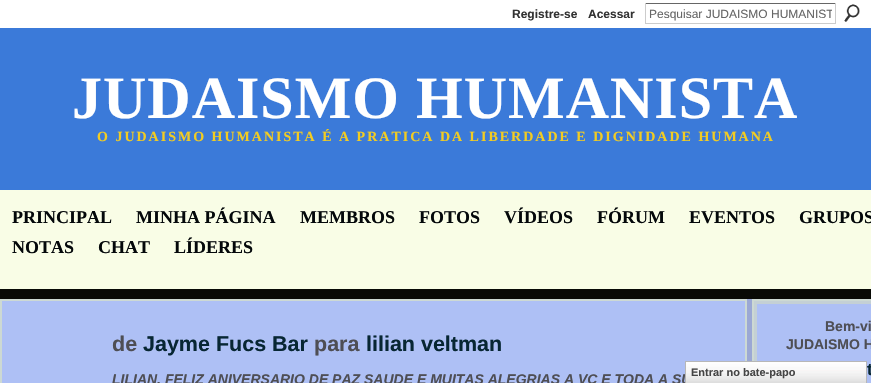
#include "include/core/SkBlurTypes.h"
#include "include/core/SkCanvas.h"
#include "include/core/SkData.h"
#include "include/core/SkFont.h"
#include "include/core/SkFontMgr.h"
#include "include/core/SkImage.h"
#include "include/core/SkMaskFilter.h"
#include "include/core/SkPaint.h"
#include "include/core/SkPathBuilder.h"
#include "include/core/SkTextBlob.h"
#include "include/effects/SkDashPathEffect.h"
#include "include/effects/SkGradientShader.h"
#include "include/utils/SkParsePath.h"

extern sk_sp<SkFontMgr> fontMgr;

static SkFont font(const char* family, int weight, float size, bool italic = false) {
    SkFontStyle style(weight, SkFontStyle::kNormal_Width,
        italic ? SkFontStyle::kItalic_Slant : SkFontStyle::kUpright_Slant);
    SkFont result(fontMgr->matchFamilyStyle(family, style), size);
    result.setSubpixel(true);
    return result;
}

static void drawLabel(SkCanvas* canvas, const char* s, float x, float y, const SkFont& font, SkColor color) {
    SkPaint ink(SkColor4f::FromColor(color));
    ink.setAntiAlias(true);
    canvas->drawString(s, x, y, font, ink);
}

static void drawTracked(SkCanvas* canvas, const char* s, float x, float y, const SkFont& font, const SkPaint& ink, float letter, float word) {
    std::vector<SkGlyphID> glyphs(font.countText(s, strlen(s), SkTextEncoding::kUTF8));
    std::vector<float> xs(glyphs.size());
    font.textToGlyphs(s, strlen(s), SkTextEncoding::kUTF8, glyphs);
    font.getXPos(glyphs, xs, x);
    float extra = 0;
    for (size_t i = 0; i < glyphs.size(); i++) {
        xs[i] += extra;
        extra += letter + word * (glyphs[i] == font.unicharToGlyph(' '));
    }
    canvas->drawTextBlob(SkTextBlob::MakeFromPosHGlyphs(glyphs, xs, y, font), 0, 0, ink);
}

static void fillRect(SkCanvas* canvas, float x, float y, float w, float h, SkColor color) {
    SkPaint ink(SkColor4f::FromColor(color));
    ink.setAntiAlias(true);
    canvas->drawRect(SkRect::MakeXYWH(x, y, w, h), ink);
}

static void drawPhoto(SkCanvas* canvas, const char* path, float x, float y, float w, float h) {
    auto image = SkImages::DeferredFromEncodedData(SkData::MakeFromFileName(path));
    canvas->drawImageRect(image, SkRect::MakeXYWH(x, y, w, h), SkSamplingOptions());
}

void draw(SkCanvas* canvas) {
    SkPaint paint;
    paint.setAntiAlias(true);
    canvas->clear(0xFFFFFFFF);
    SkFont font1 = font("Liberation Sans", 700, 12);
    drawLabel(canvas, "Registre-se", 512, 18, font1, 0xFF333333);
    drawLabel(canvas, "Acessar", 588, 18, font1, 0xFF333333);
    fillRect(canvas, 645, 3, 191, 1, 0xFF666666);
    fillRect(canvas, 835, 3, 1, 21, 0xFFCCCCCC);
    fillRect(canvas, 645, 23, 191, 1, 0xFFCCCCCC);
    fillRect(canvas, 645, 3, 1, 21, 0xFFCCCCCC);
    canvas->save();
    canvas->clipRect(SkRect::MakeXYWH(649, 7, 183, 14));
    SkFont font2 = font("Liberation Sans", 400, 12);
    drawLabel(canvas, "Pesquisar JUDAISMO HUMANIST", 649, 18, font2, 0xFF666666);
    canvas->restore();
    drawPhoto(canvas, "assets/img1.png", 844, 4, 16, 18);
    fillRect(canvas, 0, 28, 871, 162, 0xFF3B7AD9);
    SkFont font3 = font("Liberation Serif", 700, 60);
    paint.setColor(0xFFFFFFFF);
    drawTracked(canvas, "JUDAISMO HUMANISTA", 72, 118, font3, paint, 1, 0);
    SkFont font4 = font("Liberation Serif", 700, 14);
    paint.setColor(0xFFF2CC22);
    drawTracked(canvas, "O JUDAISMO HUMANISTA É A PRATICA DA LIBERDADE E DIGNIDADE HUMANA", 97, 141, font4, paint, 2, 0);
    fillRect(canvas, 0, 190, 871, 99, 0xFFF9FDE6);
    SkFont font5 = font("Liberation Serif", 700, 18);
    drawLabel(canvas, "PRINCIPAL", 12, 223, font5, 0xFF04080A);
    drawLabel(canvas, "MINHA PÁGINA", 136, 223, font5, 0xFF04080A);
    drawLabel(canvas, "MEMBROS", 300, 223, font5, 0xFF04080A);
    drawLabel(canvas, "FOTOS", 419, 223, font5, 0xFF04080A);
    drawLabel(canvas, "VÍDEOS", 504, 223, font5, 0xFF04080A);
    drawLabel(canvas, "FÓRUM", 597, 223, font5, 0xFF04080A);
    drawLabel(canvas, "EVENTOS", 689, 223, font5, 0xFF04080A);
    drawLabel(canvas, "GRUPOS", 799, 223, font5, 0xFF04080A);
    drawLabel(canvas, "NOTAS", 12, 253, font5, 0xFF04080A);
    drawLabel(canvas, "CHAT", 98, 253, font5, 0xFF04080A);
    drawLabel(canvas, "LÍDERES", 174, 253, font5, 0xFF04080A);
    fillRect(canvas, 0, 289, 871, 10, 0xFF090A06);
    fillRect(canvas, 747, 299, 5, 62, 0xFF9BA8D4);
    paint.setColor(0xFFAEC0F5);
    canvas->drawRect(SkRect::MakeXYWH(1, 300, 745, 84), paint);
    paint.setStroke(true);
    paint.setStrokeWidth(2);
    paint.setColor(0xFFCDD9D3);
    canvas->drawRect(SkRect::MakeXYWH(1, 300, 745, 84), paint);
    SkFont font6 = font("Liberation Sans", 700, 21.5f);
    drawLabel(canvas, "de", 112, 351, font6, 0xFF4E4E54);
    drawLabel(canvas, "Jayme Fucs Bar", 143, 351, font6, 0xFF072633);
    drawLabel(canvas, "para", 314, 351, font6, 0xFF4E4E54);
    drawLabel(canvas, "lilian veltman", 366, 351, font6, 0xFF072633);
    SkFont font7 = font("Liberation Sans", 700, 14, true);
    drawLabel(canvas, "LILIAN, FELIZ ANIVERSARIO DE PAZ SAUDE E MUITAS ALEGRIAS A VC E TODA A SU", 112, 384, font7, 0xFF4E4E54);
    fillRect(canvas, 757, 304, 114, 79, 0xFFAEC0F5);
    canvas->drawRect(SkRect::MakeXYWH(753, 300, 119, 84), paint);
    paint.setStrokeWidth(3);
    paint.setColor(0xFFC4D0D5);
    canvas->drawRect(SkRect::MakeXYWH(755.5f, 302.5f, 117, 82), paint);
    SkFont font8 = font("Liberation Sans", 700, 14);
    drawLabel(canvas, "Bem-vi", 825, 331, font8, 0xFF4E4E54);
    drawLabel(canvas, "JUDAISMO H", 786, 349, font8, 0xFF4E4E54);
    SkFont font9 = font("Liberation Sans", 700, 17);
    drawLabel(canvas, "t", 867, 375, font9, 0xFF072633);
    drawPhoto(canvas, "assets/img2.png", 686, 362, 180, 21);
    paint.setStrokeWidth(1);
    paint.setColor(0xFFB7B7B7);
    canvas->drawRect(SkRect::MakeXYWH(685.5f, 361.5f, 181, 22), paint);
    SkFont font10 = font("Liberation Sans", 700, 11);
    drawLabel(canvas, "Entrar no bate-papo", 691, 376, font10, 0xFF454545);
}
